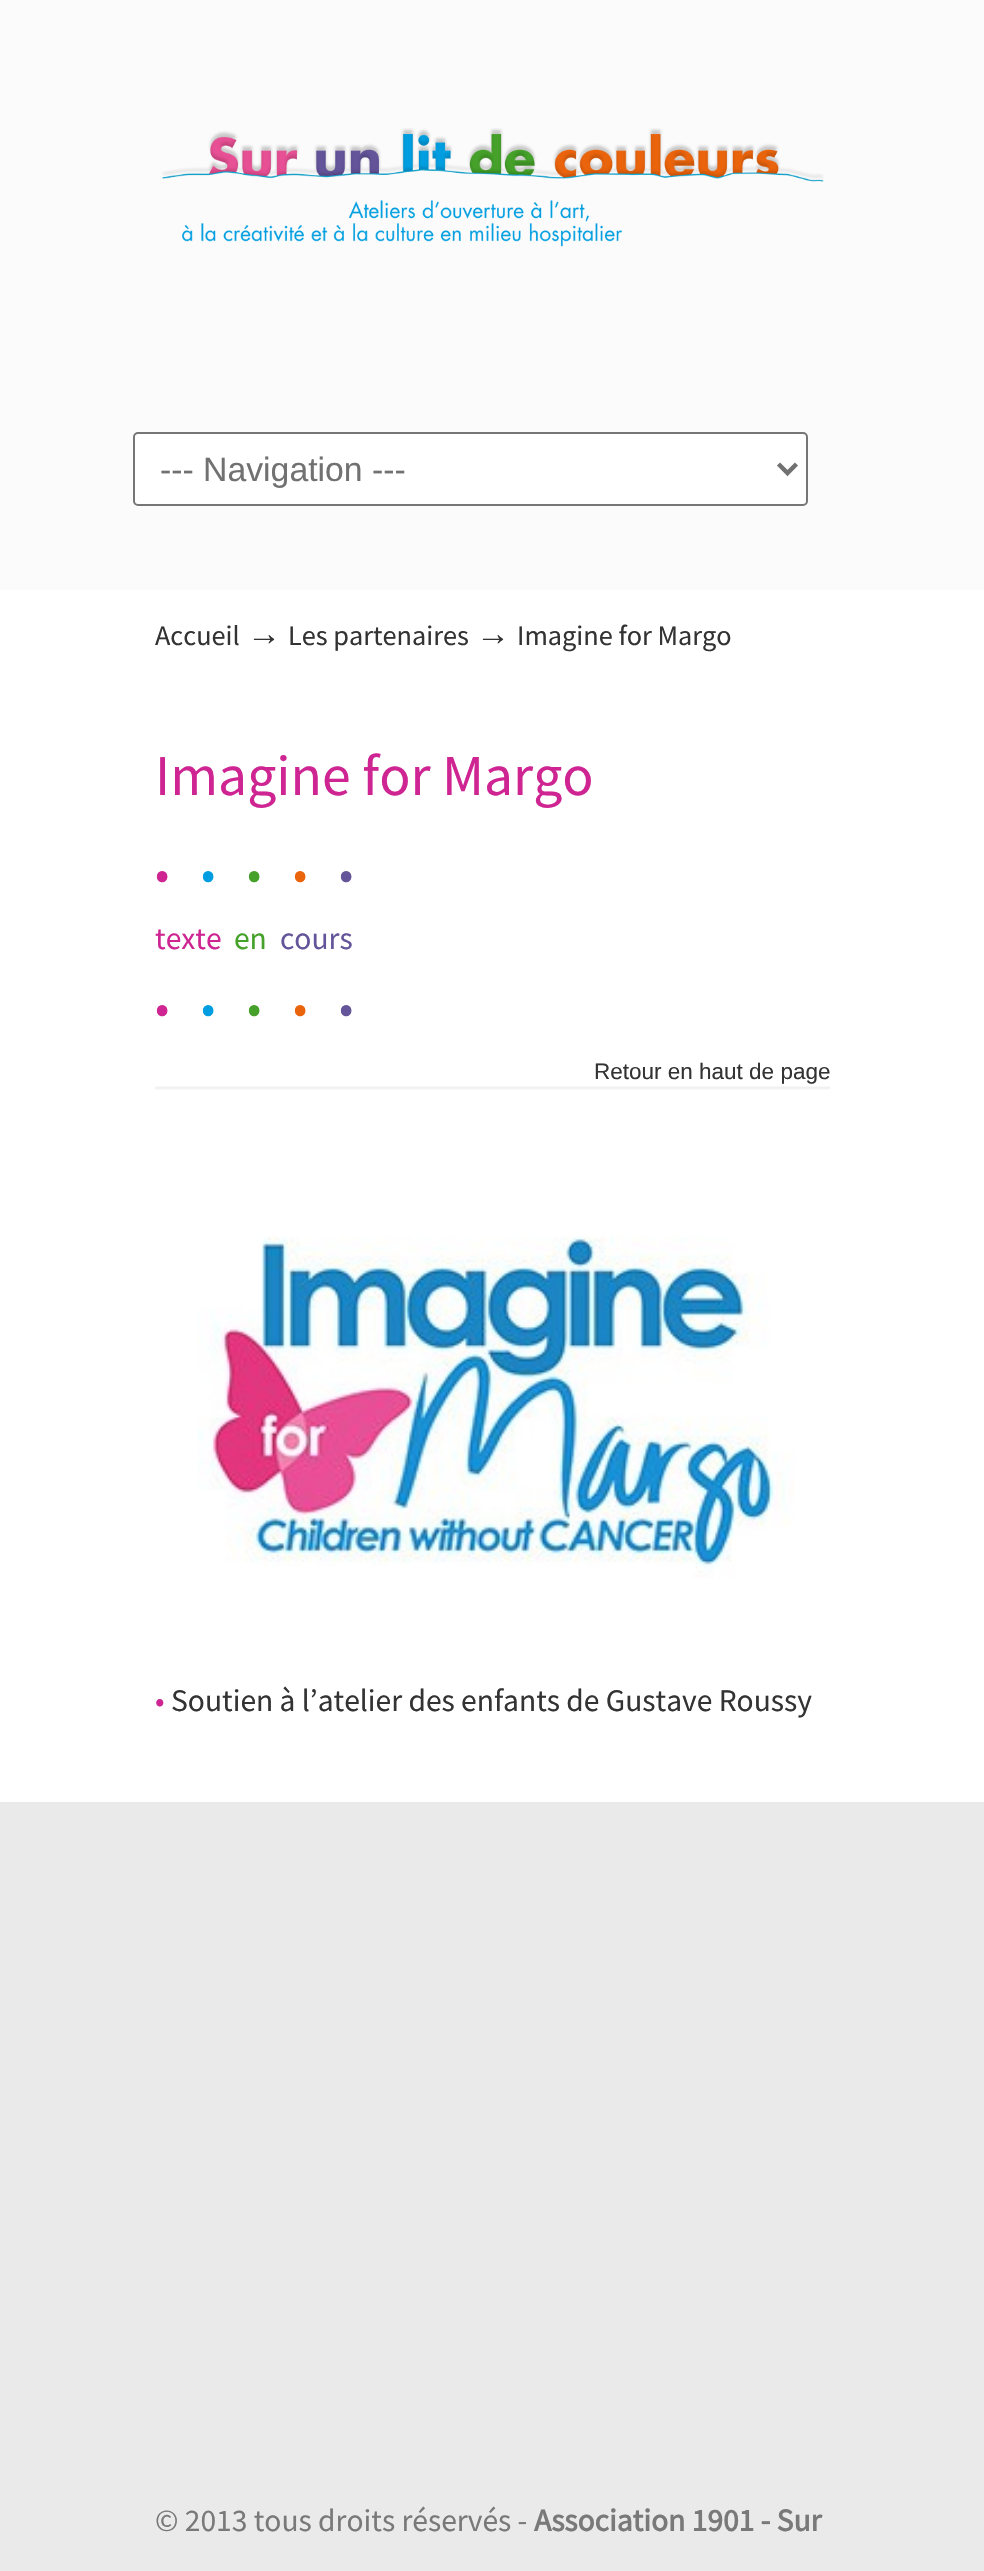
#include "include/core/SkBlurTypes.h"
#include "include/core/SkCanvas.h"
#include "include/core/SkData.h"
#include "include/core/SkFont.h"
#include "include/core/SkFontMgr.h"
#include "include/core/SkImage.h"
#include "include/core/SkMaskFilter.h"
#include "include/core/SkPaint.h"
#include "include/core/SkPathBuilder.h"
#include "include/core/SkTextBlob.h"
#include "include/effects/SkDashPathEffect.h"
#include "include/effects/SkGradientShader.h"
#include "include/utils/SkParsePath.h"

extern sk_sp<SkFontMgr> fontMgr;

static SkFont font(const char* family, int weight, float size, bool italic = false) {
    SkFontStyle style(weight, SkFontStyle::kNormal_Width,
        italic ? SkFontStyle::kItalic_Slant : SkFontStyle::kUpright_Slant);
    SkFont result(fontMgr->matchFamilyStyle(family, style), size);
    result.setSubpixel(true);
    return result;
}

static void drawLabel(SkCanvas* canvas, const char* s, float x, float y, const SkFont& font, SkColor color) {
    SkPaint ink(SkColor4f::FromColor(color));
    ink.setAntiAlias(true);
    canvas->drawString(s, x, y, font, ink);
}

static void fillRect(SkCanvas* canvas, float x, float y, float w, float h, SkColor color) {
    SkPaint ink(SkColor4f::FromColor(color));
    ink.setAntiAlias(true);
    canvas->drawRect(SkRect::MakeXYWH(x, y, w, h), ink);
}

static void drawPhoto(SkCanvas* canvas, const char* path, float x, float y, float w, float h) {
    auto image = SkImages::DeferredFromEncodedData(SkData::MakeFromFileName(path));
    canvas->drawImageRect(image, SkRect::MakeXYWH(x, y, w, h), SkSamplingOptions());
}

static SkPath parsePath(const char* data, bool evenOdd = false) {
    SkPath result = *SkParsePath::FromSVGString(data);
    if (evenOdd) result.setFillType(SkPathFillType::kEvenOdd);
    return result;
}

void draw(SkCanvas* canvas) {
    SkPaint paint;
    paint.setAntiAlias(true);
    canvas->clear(0xFFEAEAEA);
    fillRect(canvas, 0, 0, 984, 590, 0xFFFBFBFB);
    drawPhoto(canvas, "assets/img1.png", 161, 128, 663, 119);
    paint.setColor(0xFFFFFFFF);
    canvas->drawRoundRect(SkRect::MakeXYWH(134, 433, 673, 72), 4, 4, paint);
    paint.setStroke(true);
    paint.setStrokeWidth(2);
    paint.setColor(0xFF767676);
    canvas->drawRoundRect(SkRect::MakeXYWH(134, 433, 673, 72), 4, 4, paint);
    paint.setStrokeWidth(4.5f);
    paint.setColor(0xFF717171);
    canvas->drawPath(parsePath("M778.5 464L787.5 473L796.5 464"), paint);
    SkFont font1 = font("Liberation Sans", 400, 33.75f);
    drawLabel(canvas, "--- Navigation ---", 160, 481, font1, 0xFF717171);
    fillRect(canvas, 0, 590, 984, 1212, 0xFFFFFFFF);
    SkFont font2 = font("Source Sans Pro", 400, 28.25f);
    drawLabel(canvas, "Accueil", 155, 645, font2, 0xFF333333);
    SkFont font3 = font("Liberation Serif", 400, 34);
    drawLabel(canvas, "→", 247, 645, font3, 0xFF333333);
    drawLabel(canvas, "Les partenaires", 288, 645, font2, 0xFF333333);
    drawLabel(canvas, "→", 476, 645, font3, 0xFF333333);
    drawLabel(canvas, "Imagine for Margo", 517, 645, font2, 0xFF333333);
    SkFont font4 = font("Source Sans Pro", 400, 57.75f);
    drawLabel(canvas, "Imagine for Margo", 155, 795, font4, 0xFFCE2592);
    SkFont font5 = font("Source Sans Pro", 400, 47);
    drawLabel(canvas, "•", 155, 889, font5, 0xFFCE2592);
    drawLabel(canvas, "•", 201, 889, font5, 0xFF009EE0);
    drawLabel(canvas, "•", 247, 889, font5, 0xFF45A12A);
    drawLabel(canvas, "•", 293, 889, font5, 0xFFEA640C);
    drawLabel(canvas, "•", 339, 889, font5, 0xFF64549A);
    SkFont font6 = font("Source Sans Pro", 400, 31.5f);
    drawLabel(canvas, "texte", 155, 949, font6, 0xFFCE2592);
    drawLabel(canvas, "en", 234, 949, font6, 0xFF45A12A);
    drawLabel(canvas, "cours", 280, 949, font6, 0xFF64549A);
    drawLabel(canvas, "•", 155, 1023, font5, 0xFFCE2592);
    drawLabel(canvas, "•", 201, 1023, font5, 0xFF009EE0);
    drawLabel(canvas, "•", 247, 1023, font5, 0xFF45A12A);
    drawLabel(canvas, "•", 293, 1023, font5, 0xFFEA640C);
    drawLabel(canvas, "•", 339, 1023, font5, 0xFF64549A);
    drawPhoto(canvas, "assets/img2.png", 155, 1086, 675, 4);
    SkFont font7 = font("Liberation Sans", 400, 22.5f);
    drawLabel(canvas, "Retour en haut de page", 594, 1079, font7, 0xFF333333);
    drawPhoto(canvas, "assets/img3.png", 197, 1235, 598, 343);
    drawLabel(canvas, "•", 155, 1711, font6, 0xFFCE2592);
    drawLabel(canvas, "Soutien à l’atelier des enfants de Gustave Roussy", 171, 1711, font6, 0xFF333333);
    drawLabel(canvas, "© 2013 tous droits réservés -", 155, 2531, font6, 0xFF797979);
    SkFont font8 = font("Source Sans Pro", 700, 31.5f);
    drawLabel(canvas, "Association 1901 - Sur", 534, 2531, font8, 0xFF797979);
}
